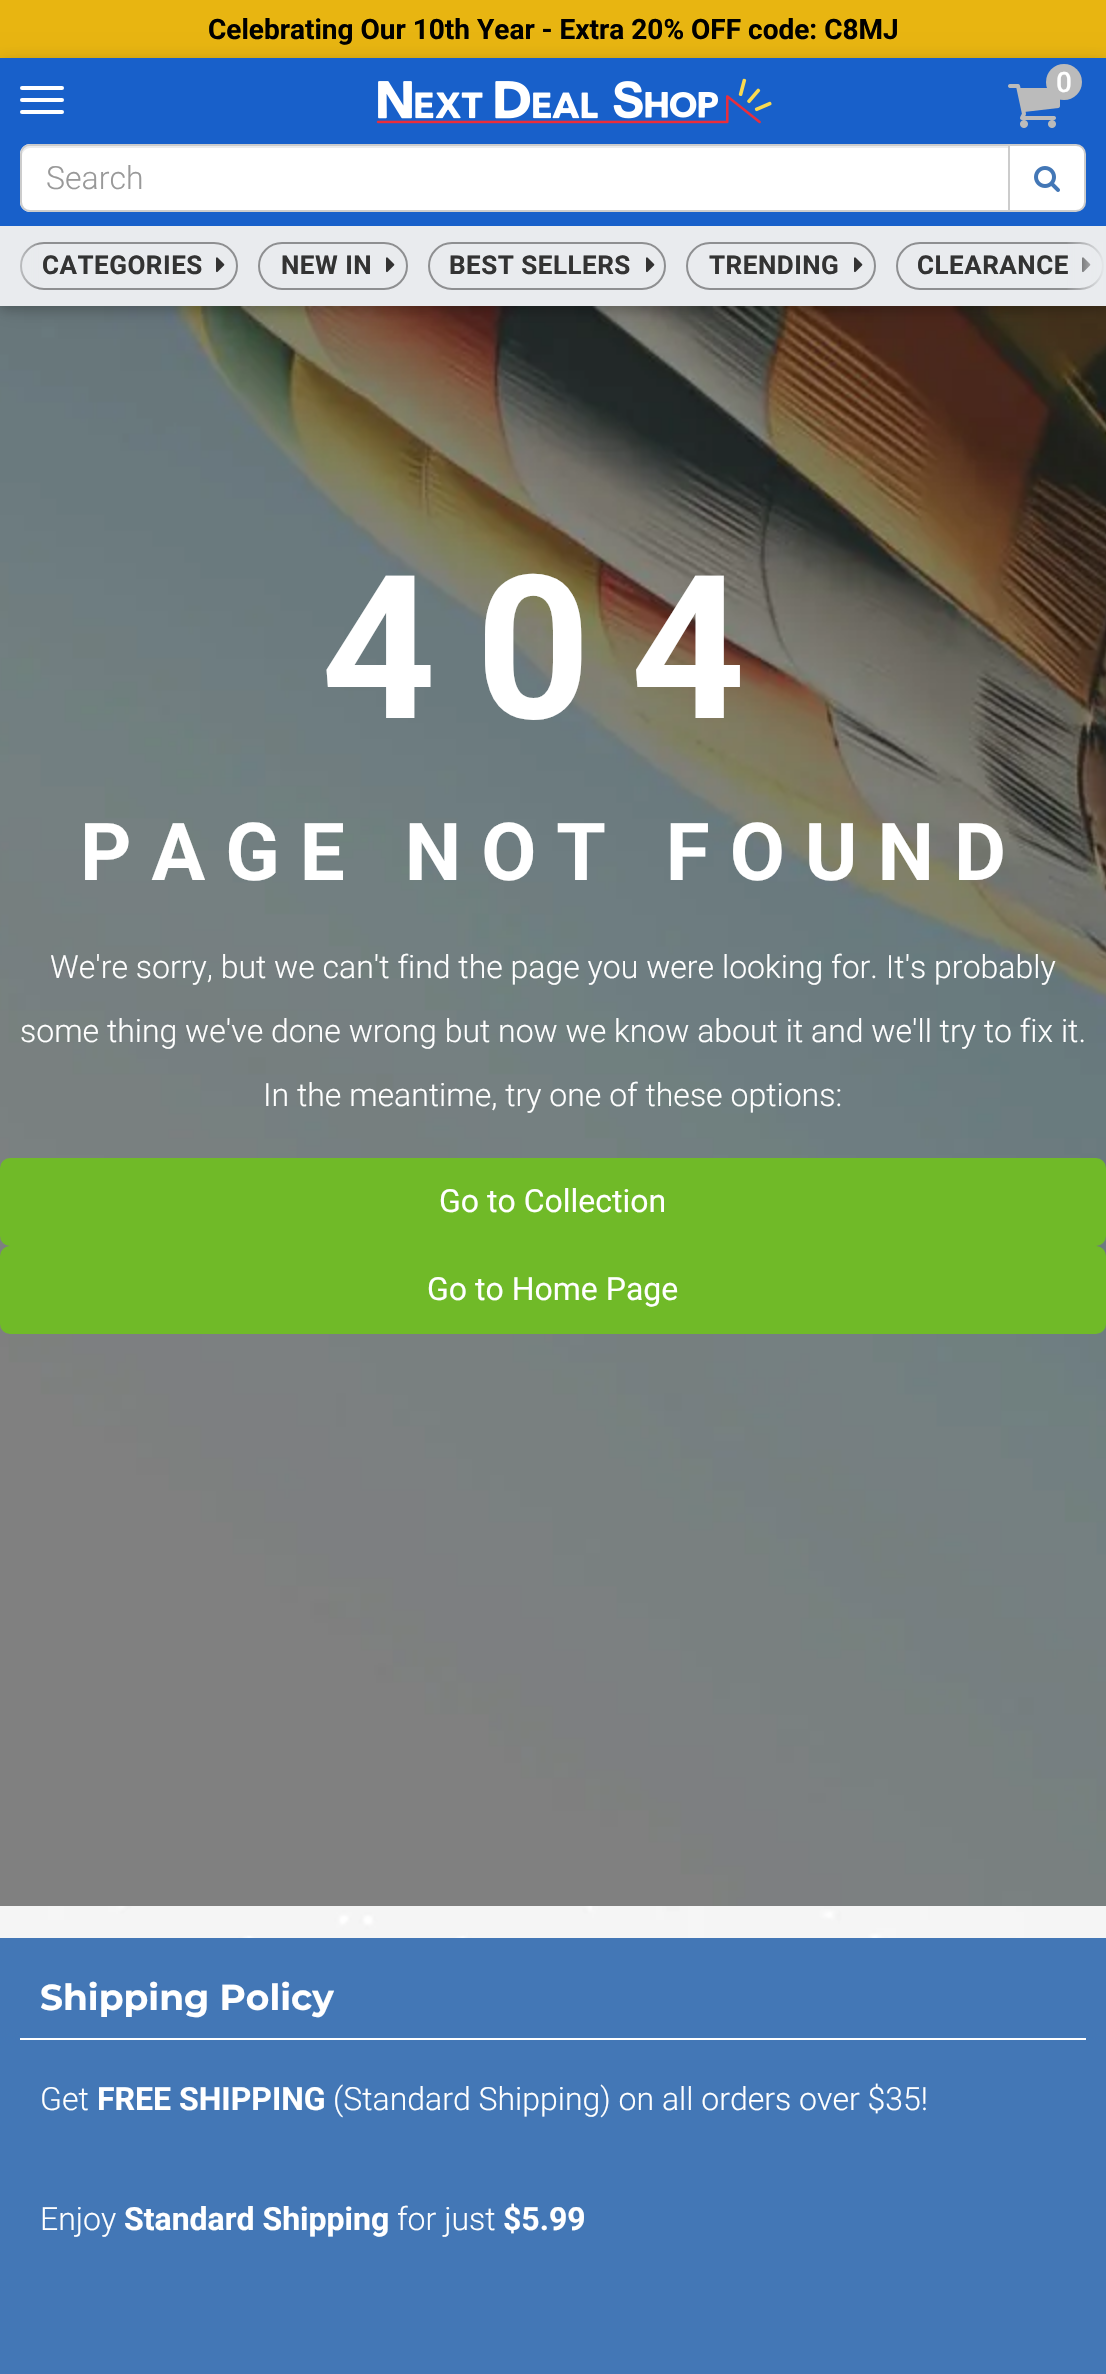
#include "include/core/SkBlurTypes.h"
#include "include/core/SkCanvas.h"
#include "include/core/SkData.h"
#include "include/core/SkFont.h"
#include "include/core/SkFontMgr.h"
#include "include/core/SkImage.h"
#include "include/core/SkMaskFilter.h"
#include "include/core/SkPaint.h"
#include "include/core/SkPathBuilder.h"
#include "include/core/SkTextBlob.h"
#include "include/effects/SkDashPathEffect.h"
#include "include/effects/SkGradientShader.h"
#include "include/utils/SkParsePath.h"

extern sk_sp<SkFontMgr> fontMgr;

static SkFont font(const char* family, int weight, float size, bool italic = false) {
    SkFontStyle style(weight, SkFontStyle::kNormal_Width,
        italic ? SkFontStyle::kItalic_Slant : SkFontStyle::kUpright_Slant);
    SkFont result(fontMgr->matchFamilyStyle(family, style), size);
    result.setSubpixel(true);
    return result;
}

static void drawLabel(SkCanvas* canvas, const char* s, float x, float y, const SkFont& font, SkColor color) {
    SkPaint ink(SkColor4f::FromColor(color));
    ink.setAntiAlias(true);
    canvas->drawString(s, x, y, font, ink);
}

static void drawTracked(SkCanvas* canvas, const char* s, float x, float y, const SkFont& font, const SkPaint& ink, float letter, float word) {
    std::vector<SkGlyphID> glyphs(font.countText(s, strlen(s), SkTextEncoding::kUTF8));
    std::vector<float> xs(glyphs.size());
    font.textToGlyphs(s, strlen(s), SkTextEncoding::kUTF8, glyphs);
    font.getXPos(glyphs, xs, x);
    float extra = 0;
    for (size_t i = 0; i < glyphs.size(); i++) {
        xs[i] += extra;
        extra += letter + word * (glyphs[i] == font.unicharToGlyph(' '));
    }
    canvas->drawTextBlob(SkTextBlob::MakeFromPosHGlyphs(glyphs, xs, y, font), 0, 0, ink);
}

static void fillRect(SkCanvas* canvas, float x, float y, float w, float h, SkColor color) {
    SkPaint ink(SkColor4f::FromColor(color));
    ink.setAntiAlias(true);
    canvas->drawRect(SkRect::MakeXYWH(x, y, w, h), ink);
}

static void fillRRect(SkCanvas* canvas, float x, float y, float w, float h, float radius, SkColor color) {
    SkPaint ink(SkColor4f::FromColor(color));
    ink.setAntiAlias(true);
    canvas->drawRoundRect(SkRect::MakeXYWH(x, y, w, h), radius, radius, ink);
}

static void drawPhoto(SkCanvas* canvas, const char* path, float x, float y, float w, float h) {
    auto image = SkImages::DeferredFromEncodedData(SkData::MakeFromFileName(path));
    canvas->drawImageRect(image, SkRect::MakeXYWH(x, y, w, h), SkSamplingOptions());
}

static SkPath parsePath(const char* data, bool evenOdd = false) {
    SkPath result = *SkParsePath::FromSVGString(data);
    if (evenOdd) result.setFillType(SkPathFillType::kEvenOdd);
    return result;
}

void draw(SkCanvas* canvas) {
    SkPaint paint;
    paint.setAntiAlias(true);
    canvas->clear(0xFFFFFFFF);
    drawPhoto(canvas, "assets/img5.png", 0, 306, 1106, 1600);
    paint.setColor(0x1F000000);
    paint.setMaskFilter(SkMaskFilter::MakeBlur(kNormal_SkBlurStyle, 10));
    canvas->drawRect(SkRect::MakeXYWH(0, 4, 1106, 306), paint);
    paint.setMaskFilter(nullptr);
    paint.setColor(0x29000000);
    paint.setMaskFilter(SkMaskFilter::MakeBlur(kNormal_SkBlurStyle, 5));
    canvas->drawRect(SkRect::MakeXYWH(0, 4, 1106, 306), paint);
    paint.setMaskFilter(nullptr);
    fillRect(canvas, 0, 0, 1106, 58, 0xFFE8B511);
    SkFont font1 = font("Roboto", 700, 28);
    drawLabel(canvas, "Celebrating Our 10th Year - Extra 20% OFF code: C8MJ", 208, 39, font1, 0xFF000000);
    paint.setColor(0x1F000000);
    paint.setMaskFilter(SkMaskFilter::MakeBlur(kNormal_SkBlurStyle, 10));
    canvas->drawRect(SkRect::MakeXYWH(0, 62, 1106, 168), paint);
    paint.setMaskFilter(nullptr);
    paint.setColor(0x29000000);
    paint.setMaskFilter(SkMaskFilter::MakeBlur(kNormal_SkBlurStyle, 5));
    canvas->drawRect(SkRect::MakeXYWH(0, 62, 1106, 168), paint);
    paint.setMaskFilter(nullptr);
    fillRect(canvas, 0, 58, 1106, 168, 0xFF1860CA);
    fillRRect(canvas, 20, 86, 44, 4, 2, 0xFFFFFFFF);
    fillRRect(canvas, 20, 98, 44, 4, 2, 0xFFFFFFFF);
    fillRRect(canvas, 20, 110, 44, 4, 2, 0xFFFFFFFF);
    drawPhoto(canvas, "assets/img1.png", 376, 78, 396, 46);
    drawPhoto(canvas, "assets/img2.png", 1008, 84, 52, 44);
    paint.setColor(0xFFBBBBBB);
    canvas->drawCircle(1064, 82, 18, paint);
    SkFont font2 = font("Roboto", 500, 28);
    drawLabel(canvas, "0", 1056, 92, font2, 0xFFFFFFFF);
    paint.setColor(0xFFFFFFFF);
    canvas->drawPath(parsePath("M30 144H1010V212H30C24.5 212 20 207.5 20 202V154C20 148.5 24.5 144 30 144Z"), paint);
    paint.setColor(0xFFECECEC);
    canvas->drawPath(parsePath("M30 148H1008V146H30C24 146 22 151 22 156C22 152 26 148 30 148Z"), paint);
    paint.setStroke(true);
    paint.setStrokeWidth(2);
    paint.setColor(0xFFCCCCCC);
    canvas->drawPath(parsePath("M30 145H1009V211H30C25 211 21 207 21 202V154C21 149 25 145 30 145Z"), paint);
    SkFont font3 = font("Roboto", 300, 32);
    drawLabel(canvas, "Search", 46, 189, font3, 0xFF999999);
    paint.setStroke(false);
    paint.setColor(0xFFFFFFFF);
    canvas->drawPath(parsePath("M1009 145H1076C1081 145 1085 149 1085 154V202C1085 207 1081 211 1076 211H1009Z"), paint);
    paint.setStroke(true);
    paint.setColor(0xFFCCCCCC);
    canvas->drawPath(parsePath("M1009 145H1076C1081 145 1085 149 1085 154V202C1085 207 1081 211 1076 211H1009Z"), paint);
    drawPhoto(canvas, "assets/img3.png", 1034, 166, 26, 26);
    fillRect(canvas, 0, 226, 1106, 80, 0xFFE9EBEE);
    paint.setColor(0xFF8E8F91);
    canvas->drawRoundRect(SkRect::MakeXYWH(21, 243, 216, 46), 23, 23, paint);
    paint.setStroke(false);
    {
        const SkColor colors[] = {0xFFE9EBEE, 0x00E9EBEE};
        const float stops[] = {0, 1};
        const SkPoint ends[] = {{0, 266}, {40, 266}};
        paint.setShader(SkGradientShader::MakeLinear(ends, colors, stops, 2, SkTileMode::kClamp));
        paint.setAlpha(255);
    }
    canvas->drawRect(SkRect::MakeXYWH(20, 243, 19, 46), paint);
    SkFont font4 = font("Roboto", 700, 26);
    paint.setShader(nullptr);
    paint.setColor(0xFF333333);
    drawTracked(canvas, "CATEGORIES", 42, 274, font4, paint, 0.5f, 0);
    drawPhoto(canvas, "assets/img4.png", 216, 257, 9, 16);
    paint.setStroke(true);
    paint.setColor(0xFF8E8F91);
    canvas->drawRoundRect(SkRect::MakeXYWH(259, 243, 148, 46), 23, 23, paint);
    paint.setStroke(false);
    paint.setColor(0xFF333333);
    drawTracked(canvas, "NEW IN", 281, 274, font4, paint, 0.5f, 0);
    drawPhoto(canvas, "assets/img4.png", 386, 257, 9, 16);
    paint.setStroke(true);
    paint.setColor(0xFF8E8F91);
    canvas->drawRoundRect(SkRect::MakeXYWH(429, 243, 236, 46), 23, 23, paint);
    paint.setStroke(false);
    paint.setColor(0xFF333333);
    drawTracked(canvas, "BEST SELLERS", 449, 274, font4, paint, 0.5f, 0);
    drawPhoto(canvas, "assets/img4.png", 646, 257, 9, 16);
    paint.setStroke(true);
    paint.setColor(0xFF8E8F91);
    canvas->drawRoundRect(SkRect::MakeXYWH(687, 243, 188, 46), 23, 23, paint);
    paint.setStroke(false);
    paint.setColor(0xFF333333);
    drawTracked(canvas, "TRENDING", 709, 274, font4, paint, 0.5f, 0);
    drawPhoto(canvas, "assets/img4.png", 854, 257, 9, 16);
    paint.setStroke(true);
    paint.setColor(0xFF8E8F91);
    canvas->drawRoundRect(SkRect::MakeXYWH(897, 243, 206, 46), 23, 23, paint);
    paint.setStroke(false);
    paint.setColor(0xFF333333);
    drawTracked(canvas, "CLEARANCE", 917, 274, font4, paint, 0.5f, 0);
    drawPhoto(canvas, "assets/img4.png", 1082, 257, 9, 16);
    {
        const SkColor colors[] = {0x00E9EBEE, 0xFFE9EBEE};
        const float stops[] = {0, 1};
        const SkPoint ends[] = {{1066, 266}, {1106, 266}};
        paint.setShader(SkGradientShader::MakeLinear(ends, colors, stops, 2, SkTileMode::kClamp));
        paint.setAlpha(255);
    }
    canvas->drawRect(SkRect::MakeXYWH(1067, 242, 37, 48), paint);
    SkFont font5 = font("Roboto", 700, 200);
    paint.setShader(nullptr);
    paint.setColor(0xFFFFFFFF);
    drawTracked(canvas, "404", 321, 718, font5, paint, 40, 0);
    SkFont font6 = font("Roboto", 700, 80);
    drawTracked(canvas, "PAGE NOT FOUND", 80, 880, font6, paint, 20, 0);
    drawLabel(canvas, "We're sorry, but we can't find the page you were looking for. It's probably", 50, 978, font3, 0xFFFFFFFF);
    drawLabel(canvas, "some thing we've done wrong but now we know about it and we'll try to fix it.", 20, 1042, font3, 0xFFFFFFFF);
    drawLabel(canvas, "In the meantime, try one of these options:", 263, 1106, font3, 0xFFFFFFFF);
    fillRRect(canvas, 0, 1158, 1106, 88, 10, 0xFF70BA28);
    SkFont font7 = font("Roboto", 400, 32);
    drawLabel(canvas, "Go to Collection", 439, 1212, font7, 0xFFFFFFFF);
    fillRRect(canvas, 0, 1246, 1106, 88, 10, 0xFF70BA28);
    drawLabel(canvas, "Go to Home Page", 427, 1300, font7, 0xFFFFFFFF);
    drawPhoto(canvas, "assets/img6.png", 0, 1906, 1106, 32);
    fillRect(canvas, 0, 1938, 1106, 436, 0xFF4377B6);
    fillRect(canvas, 20, 2038, 1066, 2, 0xFFFFFFFF);
    SkFont font8 = font("Montserrat", 700, 36);
    drawLabel(canvas, "Shipping Policy", 40, 2010, font8, 0xFFFFFFFF);
    drawLabel(canvas, "Get", 40, 2110, font3, 0xFFFFFFFF);
    SkFont font9 = font("Roboto", 700, 32);
    drawLabel(canvas, "FREE SHIPPING", 97, 2110, font9, 0xFFFFFFFF);
    drawLabel(canvas, "(Standard Shipping) on all orders over $35!", 333, 2110, font3, 0xFFFFFFFF);
    drawLabel(canvas, "Enjoy", 40, 2230, font3, 0xFFFFFFFF);
    drawLabel(canvas, "Standard Shipping", 124, 2230, font9, 0xFFFFFFFF);
    drawLabel(canvas, "for just", 397, 2230, font3, 0xFFFFFFFF);
    drawLabel(canvas, "$5.99", 503, 2230, font9, 0xFFFFFFFF);
}
